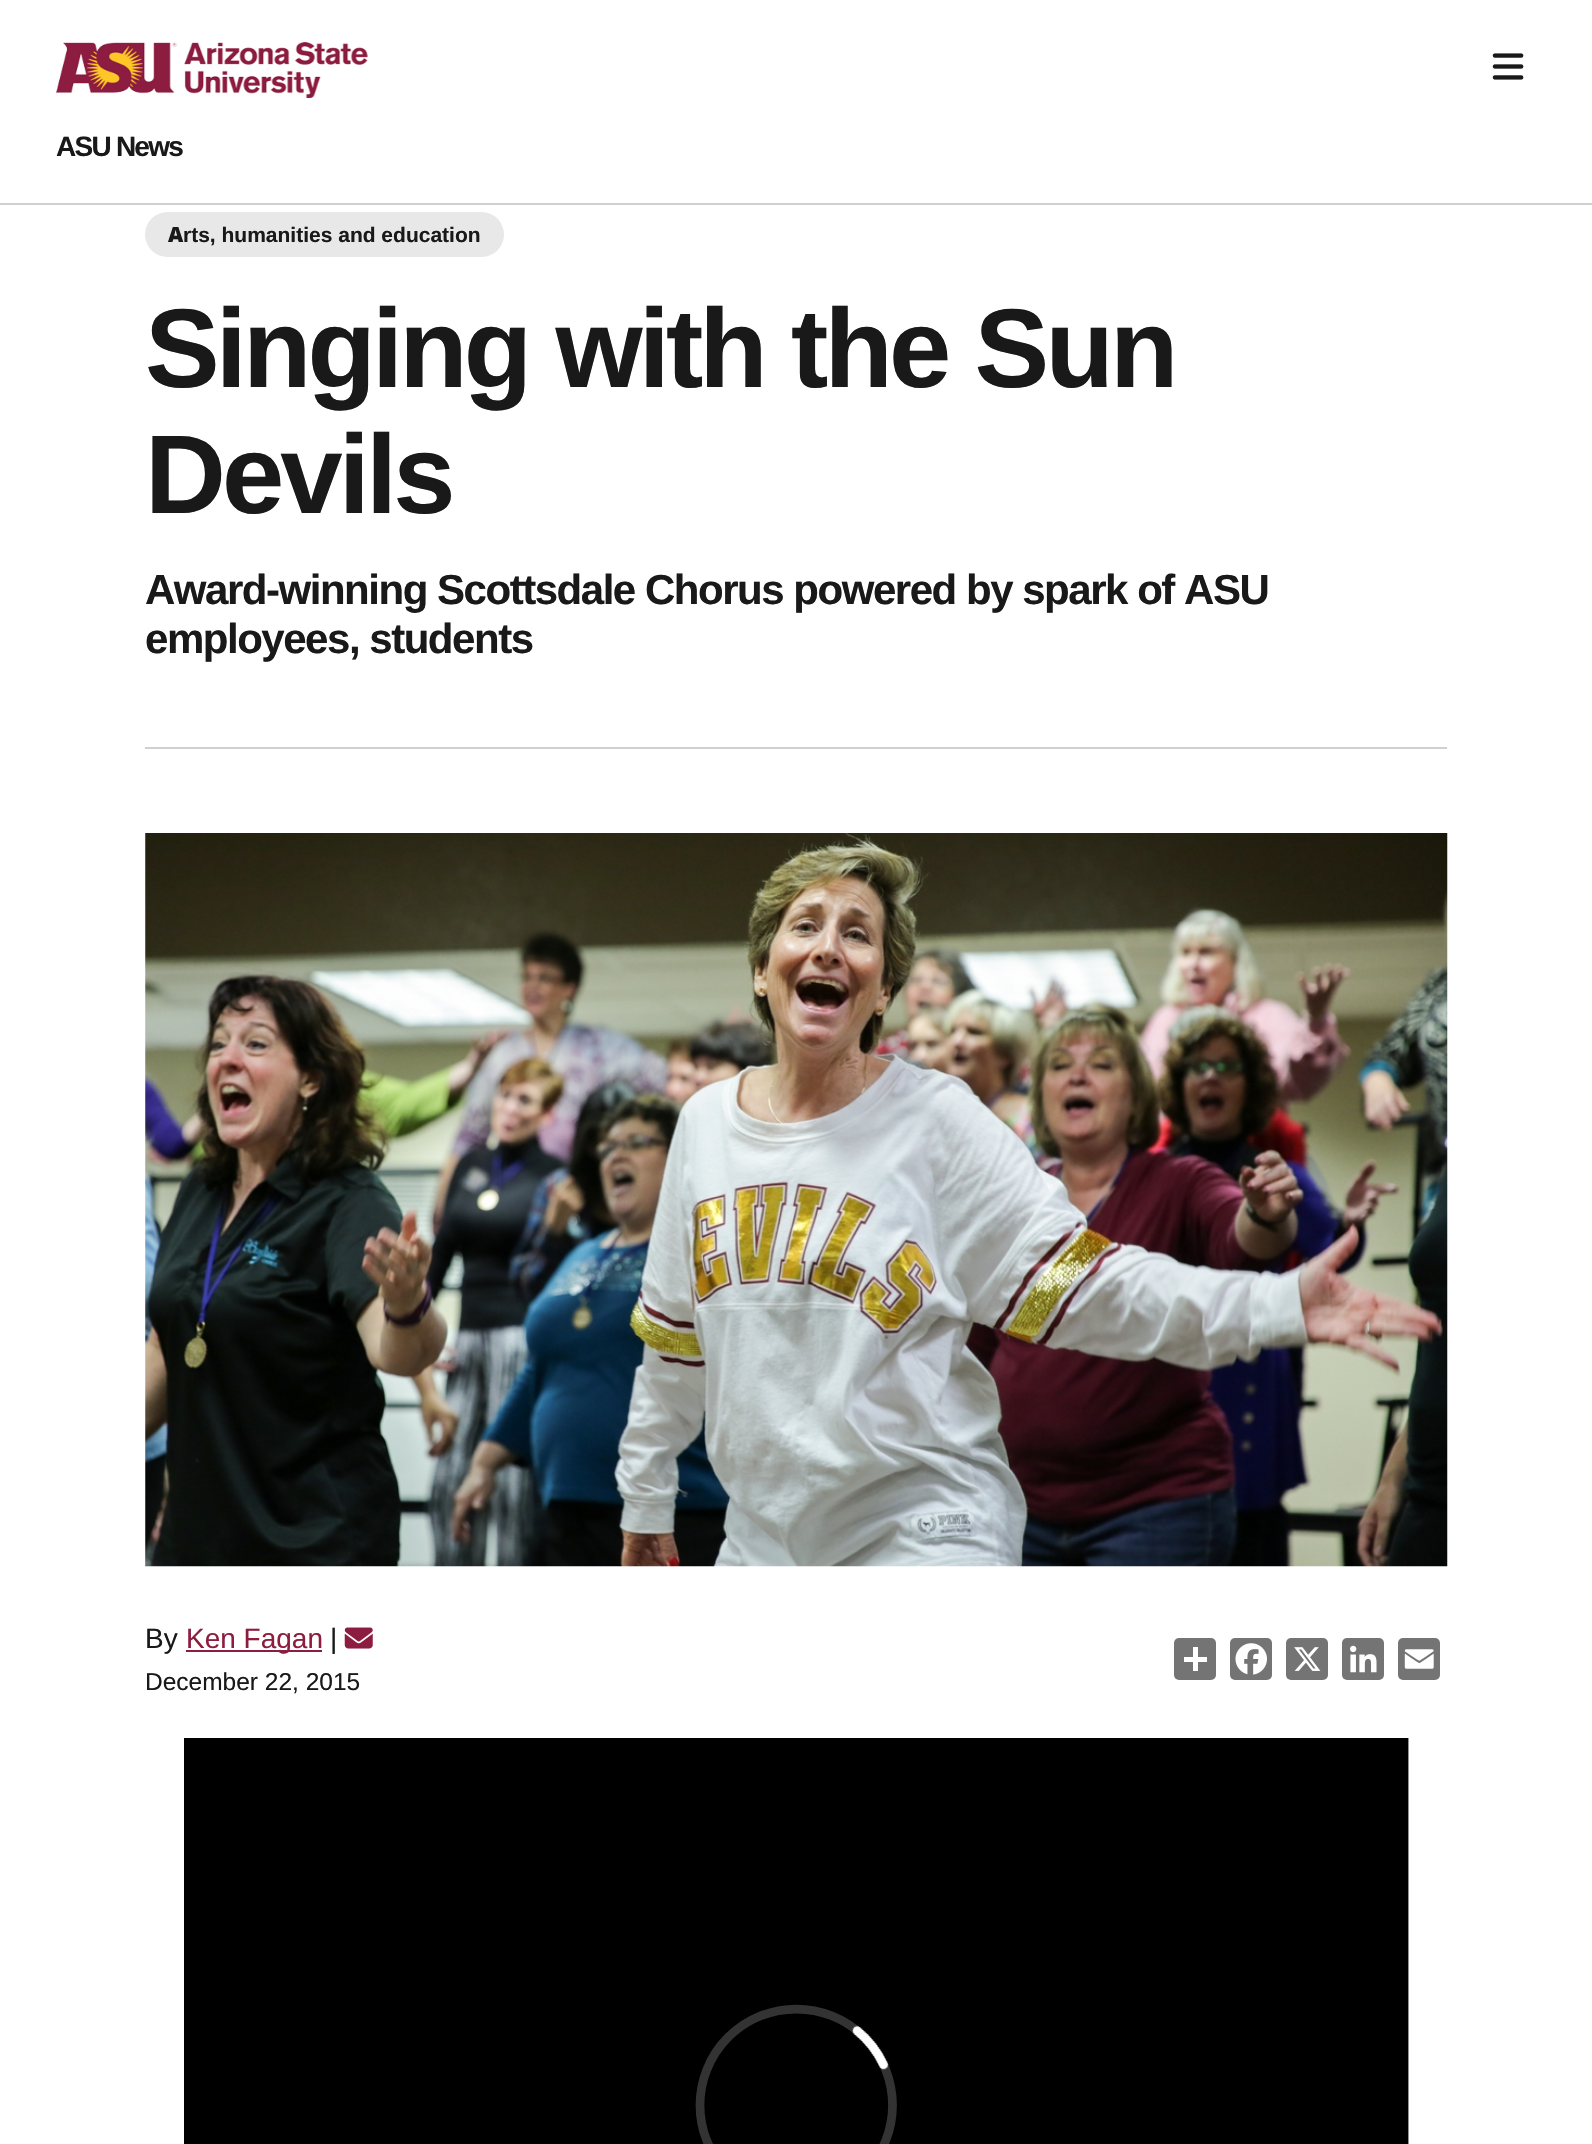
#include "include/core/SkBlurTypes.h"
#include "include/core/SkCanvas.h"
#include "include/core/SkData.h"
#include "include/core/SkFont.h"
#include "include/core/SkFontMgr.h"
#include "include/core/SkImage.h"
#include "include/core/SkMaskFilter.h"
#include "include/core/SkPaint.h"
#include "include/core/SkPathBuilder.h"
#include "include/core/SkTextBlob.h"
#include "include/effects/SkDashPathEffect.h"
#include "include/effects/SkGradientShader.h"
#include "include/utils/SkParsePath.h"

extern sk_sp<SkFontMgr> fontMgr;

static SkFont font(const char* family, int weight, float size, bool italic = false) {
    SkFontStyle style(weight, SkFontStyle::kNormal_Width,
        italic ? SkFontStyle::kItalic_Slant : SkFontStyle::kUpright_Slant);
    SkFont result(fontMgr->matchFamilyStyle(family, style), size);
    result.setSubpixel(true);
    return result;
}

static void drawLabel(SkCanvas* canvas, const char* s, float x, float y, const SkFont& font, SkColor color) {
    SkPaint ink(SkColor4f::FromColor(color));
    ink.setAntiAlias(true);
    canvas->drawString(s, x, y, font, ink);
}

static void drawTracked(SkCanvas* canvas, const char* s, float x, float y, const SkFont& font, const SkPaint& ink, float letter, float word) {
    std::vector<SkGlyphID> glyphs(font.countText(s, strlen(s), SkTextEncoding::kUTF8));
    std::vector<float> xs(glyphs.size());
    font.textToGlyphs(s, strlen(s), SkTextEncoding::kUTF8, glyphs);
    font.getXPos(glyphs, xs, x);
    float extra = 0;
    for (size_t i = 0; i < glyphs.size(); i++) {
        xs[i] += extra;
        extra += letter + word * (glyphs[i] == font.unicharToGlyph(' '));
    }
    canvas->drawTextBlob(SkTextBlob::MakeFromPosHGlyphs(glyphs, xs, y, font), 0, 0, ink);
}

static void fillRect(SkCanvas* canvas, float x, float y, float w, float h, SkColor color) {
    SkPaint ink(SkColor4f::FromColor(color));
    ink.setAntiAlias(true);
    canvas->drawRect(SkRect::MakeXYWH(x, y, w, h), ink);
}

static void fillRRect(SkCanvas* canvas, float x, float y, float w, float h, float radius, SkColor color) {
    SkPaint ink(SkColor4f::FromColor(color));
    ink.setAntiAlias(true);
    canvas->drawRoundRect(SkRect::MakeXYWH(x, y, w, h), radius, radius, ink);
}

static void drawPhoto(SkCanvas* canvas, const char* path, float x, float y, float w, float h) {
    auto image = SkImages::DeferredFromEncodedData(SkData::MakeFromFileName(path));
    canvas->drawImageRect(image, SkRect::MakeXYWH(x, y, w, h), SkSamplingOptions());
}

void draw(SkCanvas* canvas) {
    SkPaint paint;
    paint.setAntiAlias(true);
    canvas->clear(0xFFFFFFFF);
    fillRect(canvas, 0, 203, 1592, 2, 0xFFD0D0D0);
    drawPhoto(canvas, "assets/img1.png", 56, 42, 312, 56);
    drawPhoto(canvas, "assets/img2.png", 1492, 53, 32, 27);
    SkFont font1 = font("Liberation Sans", 700, 28);
    paint.setColor(0xFF191919);
    drawTracked(canvas, "ASU News", 56, 156, font1, paint, -1.75f, 0);
    fillRRect(canvas, 145, 212, 359, 45, 22.5f, 0xFFE8E8E8);
    SkFont font2 = font("Noto Sans", 900, 21);
    drawLabel(canvas, "A", 168, 242, font2, 0xFF191919);
    SkFont font3 = font("Liberation Sans", 700, 21);
    drawLabel(canvas, "rts, humanities and education", 183, 242, font3, 0xFF191919);
    SkFont font4 = font("Liberation Sans", 700, 112);
    drawTracked(canvas, "Singing with the Sun", 145, 387, font4, paint, -3.9f, 0);
    drawTracked(canvas, "Devils", 145, 513, font4, paint, -3.9f, 0);
    SkFont font5 = font("Liberation Sans", 700, 42);
    drawTracked(canvas, "Award-winning Scottsdale Chorus powered by spark of ASU", 145, 604, font5, paint, -1.47f, 0);
    drawTracked(canvas, "employees, students", 145, 653, font5, paint, -1.47f, 0);
    fillRect(canvas, 145, 747, 1302, 2, 0xFFD0D0D0);
    drawPhoto(canvas, "assets/img3.png", 145, 833, 1303, 734);
    SkFont font6 = font("Liberation Sans", 400, 28);
    drawLabel(canvas, "By", 145, 1648, font6, 0xFF191919);
    fillRect(canvas, 186, 1650, 136, 2, 0xFF8C1D40);
    drawLabel(canvas, "Ken Fagan", 186, 1648, font6, 0xFF8C1D40);
    drawLabel(canvas, "|", 330, 1648, font6, 0xFF191919);
    drawPhoto(canvas, "assets/img4.png", 344, 1627, 29, 22);
    SkFont font7 = font("Liberation Sans", 400, 24.5f);
    drawLabel(canvas, "December 22, 2015", 145, 1690, font7, 0xFF191919);
    fillRRect(canvas, 1174, 1638, 42, 42, 5, 0xFF747474);
    fillRect(canvas, 1193, 1647, 5, 24, 0xFFFFFFFF);
    fillRect(canvas, 1184, 1657, 23, 5, 0xFFFFFFFF);
    fillRRect(canvas, 1230, 1638, 42, 42, 5, 0xFF747474);
    drawPhoto(canvas, "assets/img5.png", 1235, 1643, 32, 32);
    fillRRect(canvas, 1286, 1638, 42, 42, 5, 0xFF747474);
    drawPhoto(canvas, "assets/img6.png", 1294, 1647, 27, 24);
    fillRRect(canvas, 1342, 1638, 42, 42, 5, 0xFF747474);
    drawPhoto(canvas, "assets/img7.png", 1350, 1645, 27, 28);
    fillRRect(canvas, 1398, 1638, 42, 42, 5, 0xFF747474);
    drawPhoto(canvas, "assets/img8.png", 1404, 1649, 30, 20);
    drawPhoto(canvas, "assets/img9.png", 184, 1738, 1225, 406);
}
